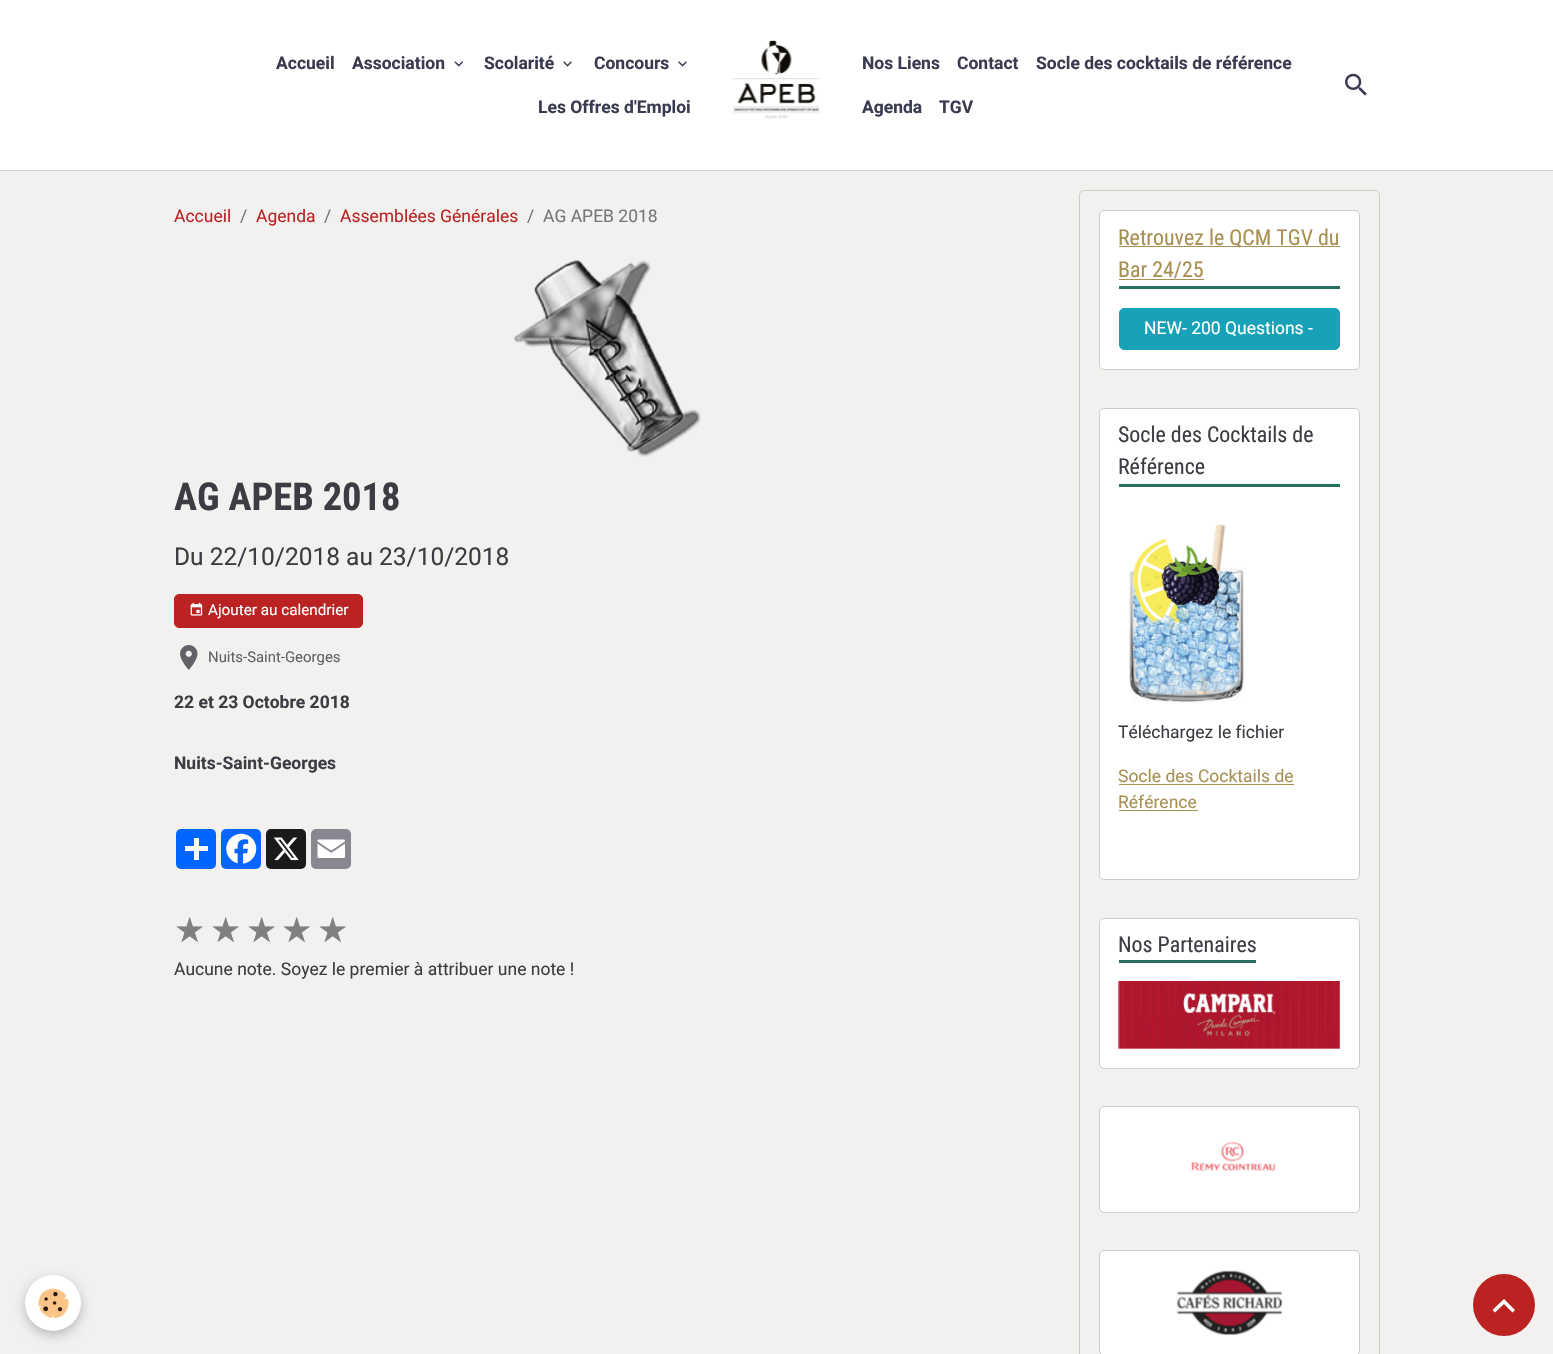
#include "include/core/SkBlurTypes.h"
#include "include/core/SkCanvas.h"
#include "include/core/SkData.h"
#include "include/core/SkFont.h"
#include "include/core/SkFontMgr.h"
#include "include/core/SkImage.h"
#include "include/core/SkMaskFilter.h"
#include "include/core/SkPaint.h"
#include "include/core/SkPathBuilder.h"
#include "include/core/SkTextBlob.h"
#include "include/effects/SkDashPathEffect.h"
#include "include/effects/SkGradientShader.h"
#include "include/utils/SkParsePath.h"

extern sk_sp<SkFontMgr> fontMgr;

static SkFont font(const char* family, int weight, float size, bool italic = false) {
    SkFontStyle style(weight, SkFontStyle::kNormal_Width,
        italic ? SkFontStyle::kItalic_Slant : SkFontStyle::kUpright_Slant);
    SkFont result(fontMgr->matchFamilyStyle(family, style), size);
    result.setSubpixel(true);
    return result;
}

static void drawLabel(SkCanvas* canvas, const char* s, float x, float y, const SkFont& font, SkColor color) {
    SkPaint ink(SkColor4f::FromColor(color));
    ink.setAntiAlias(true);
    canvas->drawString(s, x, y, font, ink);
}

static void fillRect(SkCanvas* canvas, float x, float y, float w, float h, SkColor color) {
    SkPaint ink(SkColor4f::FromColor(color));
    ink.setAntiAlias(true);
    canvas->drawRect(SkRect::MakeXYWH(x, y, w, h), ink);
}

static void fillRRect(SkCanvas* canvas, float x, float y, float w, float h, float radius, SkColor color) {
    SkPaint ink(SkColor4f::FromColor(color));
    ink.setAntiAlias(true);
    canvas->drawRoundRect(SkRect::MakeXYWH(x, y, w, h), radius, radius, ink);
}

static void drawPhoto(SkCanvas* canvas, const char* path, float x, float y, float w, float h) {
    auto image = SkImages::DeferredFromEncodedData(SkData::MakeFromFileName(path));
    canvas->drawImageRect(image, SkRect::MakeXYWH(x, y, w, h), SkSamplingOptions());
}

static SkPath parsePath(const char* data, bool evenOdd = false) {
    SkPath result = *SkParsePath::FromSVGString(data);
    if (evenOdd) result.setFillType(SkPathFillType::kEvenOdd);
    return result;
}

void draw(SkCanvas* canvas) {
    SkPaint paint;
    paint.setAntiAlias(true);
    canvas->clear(0xFFF2F1EF);
    fillRect(canvas, 0, 0, 1553, 170, 0xFFFFFFFF);
    fillRect(canvas, 0, 170, 1553, 1, 0xFFCFCDC9);
    SkFont font1 = font("Roboto", 700, 17.5f);
    drawLabel(canvas, "Accueil", 276, 69, font1, 0xFF3A3A50);
    drawLabel(canvas, "Association", 352, 69, font1, 0xFF3A3A50);
    drawPhoto(canvas, "assets/img1.png", 454, 61, 9, 6);
    drawLabel(canvas, "Scolarité", 484, 69, font1, 0xFF3A3A50);
    drawPhoto(canvas, "assets/img2.png", 563, 61, 9, 6);
    drawLabel(canvas, "Concours", 594, 69, font1, 0xFF3A3A50);
    drawPhoto(canvas, "assets/img2.png", 678, 61, 9, 6);
    drawLabel(canvas, "Les Offres d'Emploi", 538, 113, font1, 0xFF3A3A50);
    drawPhoto(canvas, "assets/img3.png", 732, 40, 88, 79);
    drawLabel(canvas, "Nos Liens", 862, 69, font1, 0xFF3A3A50);
    drawLabel(canvas, "Contact", 957, 69, font1, 0xFF3A3A50);
    drawLabel(canvas, "Socle des cocktails de référence", 1036, 69, font1, 0xFF3A3A50);
    drawLabel(canvas, "Agenda", 862, 113, font1, 0xFF3A3A50);
    drawLabel(canvas, "TGV", 939, 113, font1, 0xFF3A3A50);
    drawPhoto(canvas, "assets/img4.png", 1345, 73, 22, 23);
    SkFont font2 = font("Roboto", 400, 17.5f);
    drawLabel(canvas, "Accueil", 174, 222, font2, 0xFFBB2323);
    drawLabel(canvas, "/", 240, 222, font2, 0xFF76777B);
    drawLabel(canvas, "Agenda", 256, 222, font2, 0xFFBB2323);
    drawLabel(canvas, "/", 324, 222, font2, 0xFF76777B);
    drawLabel(canvas, "Assemblées Générales", 340, 222, font2, 0xFFBB2323);
    drawLabel(canvas, "/", 527, 222, font2, 0xFF76777B);
    drawLabel(canvas, "AG APEB 2018", 543, 222, font2, 0xFF76777B);
    drawPhoto(canvas, "assets/img5.png", 514, 260, 187, 197);
    SkFont font3 = font("Roboto Condensed", 700, 38.5f);
    drawLabel(canvas, "AG APEB 2018", 174, 510, font3, 0xFF3B3D42);
    SkFont font4 = font("Roboto", 400, 24.5f);
    drawLabel(canvas, "Du 22/10/2018 au 23/10/2018", 174, 565, font4, 0xFF3B3D42);
    paint.setColor(0xFFBB2323);
    canvas->drawRoundRect(SkRect::MakeXYWH(174.5f, 594.5f, 188, 33), 4.5f, 4.5f, paint);
    paint.setStroke(true);
    paint.setStrokeWidth(1);
    canvas->drawRoundRect(SkRect::MakeXYWH(174.5f, 594.5f, 188, 33), 4.5f, 4.5f, paint);
    drawPhoto(canvas, "assets/img6.png", 190, 602, 13, 14);
    SkFont font5 = font("Roboto", 400, 15.25f);
    drawLabel(canvas, "Ajouter au calendrier", 208, 615, font5, 0xFFFFFFFF);
    drawPhoto(canvas, "assets/img7.png", 180, 645, 18, 25);
    SkFont font6 = font("Roboto", 400, 14.9f);
    drawLabel(canvas, "Nuits-Saint-Georges", 208, 662, font6, 0xFF606165);
    drawLabel(canvas, "22 et 23 Octobre 2018", 174, 708, font1, 0xFF3B3D42);
    drawLabel(canvas, "Nuits-Saint-Georges", 174, 769, font1, 0xFF3B3D42);
    fillRRect(canvas, 176, 829, 40, 40, 5, 0xFF0166FF);
    fillRect(canvas, 194, 838, 5, 22, 0xFFFFFFFF);
    fillRect(canvas, 185, 846, 23, 5, 0xFFFFFFFF);
    fillRRect(canvas, 221, 829, 40, 40, 5, 0xFF0866FF);
    drawPhoto(canvas, "assets/img8.png", 226, 833, 31, 31);
    fillRRect(canvas, 266, 829, 40, 40, 5, 0xFF1A1A1A);
    drawPhoto(canvas, "assets/img9.png", 273, 837, 26, 24);
    fillRRect(canvas, 311, 829, 40, 40, 5, 0xFF888990);
    drawPhoto(canvas, "assets/img10.png", 317, 839, 28, 19);
    SkFont font7 = font("DejaVu Sans", 400, 35);
    drawLabel(canvas, "★", 174, 942, font7, 0xFF808080);
    drawLabel(canvas, "★", 210, 942, font7, 0xFF808080);
    drawLabel(canvas, "★", 246, 942, font7, 0xFF808080);
    drawLabel(canvas, "★", 281, 942, font7, 0xFF808080);
    drawLabel(canvas, "★", 317, 942, font7, 0xFF808080);
    drawLabel(canvas, "Aucune note. Soyez le premier à attribuer une note !", 174, 975, font2, 0xFF3B3D42);
    paint.setColor(0xFFCFCDC9);
    canvas->drawRoundRect(SkRect::MakeXYWH(1079.5f, 190.5f, 300, 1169), 4.5f, 4.5f, paint);
    paint.setStroke(false);
    paint.setColor(0xFFFFFFFF);
    canvas->drawRoundRect(SkRect::MakeXYWH(1099.5f, 210.5f, 260, 159), 4.5f, 4.5f, paint);
    paint.setStroke(true);
    paint.setColor(0xFFCFCDC9);
    canvas->drawRoundRect(SkRect::MakeXYWH(1099.5f, 210.5f, 260, 159), 4.5f, 4.5f, paint);
    fillRect(canvas, 1119, 286, 221, 3, 0xFF297063);
    fillRect(canvas, 1119, 246, 221, 1, 0xFFA89053);
    SkFont font8 = font("Roboto Condensed", 400, 21.9f);
    drawLabel(canvas, "Retrouvez le QCM TGV du", 1118, 245, font8, 0xFFA89053);
    drawLabel(canvas, "Bar 24/25", 1118, 277, font8, 0xFFA89053);
    fillRect(canvas, 1119, 279, 85, 1, 0xFFA89053);
    paint.setStroke(false);
    paint.setColor(0xFF17A2B8);
    canvas->drawRoundRect(SkRect::MakeXYWH(1119.5f, 308.5f, 220, 41), 4.5f, 4.5f, paint);
    paint.setStroke(true);
    canvas->drawRoundRect(SkRect::MakeXYWH(1119.5f, 308.5f, 220, 41), 4.5f, 4.5f, paint);
    drawLabel(canvas, "NEW- 200 Questions -", 1144, 334, font2, 0xFFFFFFFF);
    paint.setStroke(false);
    paint.setColor(0xFFFFFFFF);
    canvas->drawRoundRect(SkRect::MakeXYWH(1099.5f, 408.5f, 260, 471), 4.5f, 4.5f, paint);
    paint.setStroke(true);
    paint.setColor(0xFFCFCDC9);
    canvas->drawRoundRect(SkRect::MakeXYWH(1099.5f, 408.5f, 260, 471), 4.5f, 4.5f, paint);
    fillRect(canvas, 1119, 484, 221, 3, 0xFF297063);
    drawLabel(canvas, "Socle des Cocktails de", 1118, 442, font8, 0xFF3B3D42);
    drawLabel(canvas, "Référence", 1118, 474, font8, 0xFF3B3D42);
    drawPhoto(canvas, "assets/img11.png", 1129, 524, 116, 180);
    drawLabel(canvas, "Téléchargez le fichier", 1118, 738, font2, 0xFF3B3D42);
    drawLabel(canvas, "Socle des Cocktails de", 1118, 782, font2, 0xFFA89053);
    fillRect(canvas, 1119, 784, 175, 1, 0xFFA89053);
    drawLabel(canvas, "Référence", 1118, 808, font2, 0xFFA89053);
    fillRect(canvas, 1119, 810, 79, 1, 0xFFA89053);
    paint.setStroke(false);
    paint.setColor(0xFFFFFFFF);
    canvas->drawRoundRect(SkRect::MakeXYWH(1099.5f, 918.5f, 260, 150), 4.5f, 4.5f, paint);
    paint.setStroke(true);
    paint.setColor(0xFFCFCDC9);
    canvas->drawRoundRect(SkRect::MakeXYWH(1099.5f, 918.5f, 260, 150), 4.5f, 4.5f, paint);
    fillRect(canvas, 1119, 960, 137, 3, 0xFF297063);
    drawLabel(canvas, "Nos Partenaires", 1118, 952, font8, 0xFF3B3D42);
    drawPhoto(canvas, "assets/img12.png", 1118, 981, 222, 68);
    paint.setStroke(false);
    paint.setColor(0xFFFFFFFF);
    canvas->drawRoundRect(SkRect::MakeXYWH(1099.5f, 1106.5f, 260, 106), 4.5f, 4.5f, paint);
    paint.setStroke(true);
    paint.setColor(0xFFCFCDC9);
    canvas->drawRoundRect(SkRect::MakeXYWH(1099.5f, 1106.5f, 260, 106), 4.5f, 4.5f, paint);
    drawPhoto(canvas, "assets/img13.png", 1191, 1141, 85, 30);
    paint.setStroke(false);
    paint.setColor(0xFFFFFFFF);
    canvas->drawRoundRect(SkRect::MakeXYWH(1099.5f, 1250.5f, 260, 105), 4.5f, 4.5f, paint);
    paint.setStroke(true);
    paint.setColor(0xFFCFCDC9);
    canvas->drawRoundRect(SkRect::MakeXYWH(1099.5f, 1250.5f, 260, 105), 4.5f, 4.5f, paint);
    drawPhoto(canvas, "assets/img14.png", 1176, 1270, 107, 65);
    paint.setStroke(false);
    paint.setColor(0x3D000000);
    paint.setMaskFilter(SkMaskFilter::MakeBlur(kNormal_SkBlurStyle, 6));
    canvas->drawRoundRect(SkRect::MakeXYWH(25, 1279, 56, 56), 28, 28, paint);
    paint.setMaskFilter(nullptr);
    paint.setColor(0xFFFFFFFF);
    canvas->drawCircle(53, 1303, 28, paint);
    drawPhoto(canvas, "assets/img15.png", 38, 1288, 31, 30);
    paint.setColor(0xFFBB2323);
    canvas->drawCircle(1504, 1305, 31, paint);
    paint.setColor(0xFFFFFFFF);
    canvas->drawPath(parsePath("M1504 1299L1515 1310L1512.5 1312.5L1504 1304L1495 1312.5L1492.5 1310Z"), paint);
}
